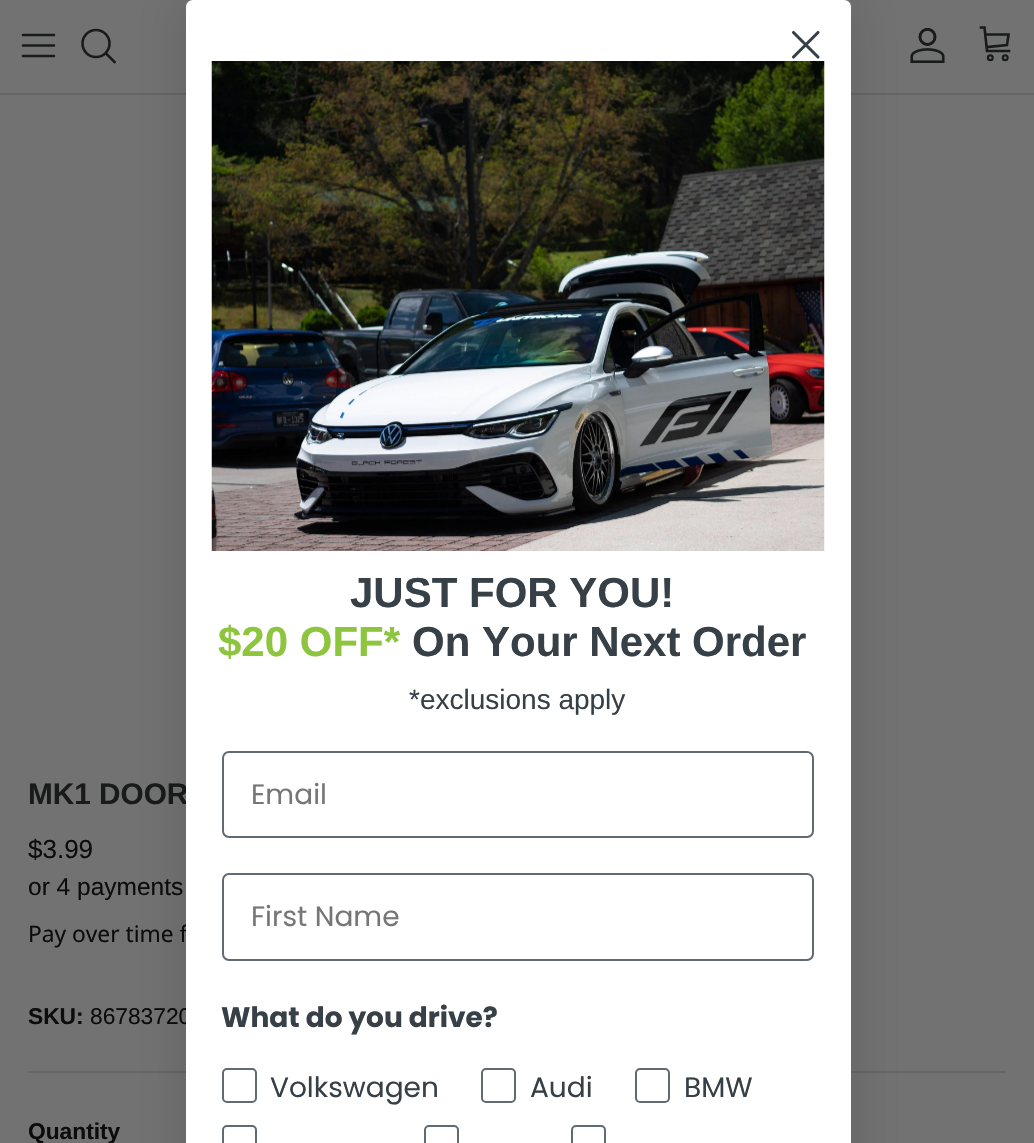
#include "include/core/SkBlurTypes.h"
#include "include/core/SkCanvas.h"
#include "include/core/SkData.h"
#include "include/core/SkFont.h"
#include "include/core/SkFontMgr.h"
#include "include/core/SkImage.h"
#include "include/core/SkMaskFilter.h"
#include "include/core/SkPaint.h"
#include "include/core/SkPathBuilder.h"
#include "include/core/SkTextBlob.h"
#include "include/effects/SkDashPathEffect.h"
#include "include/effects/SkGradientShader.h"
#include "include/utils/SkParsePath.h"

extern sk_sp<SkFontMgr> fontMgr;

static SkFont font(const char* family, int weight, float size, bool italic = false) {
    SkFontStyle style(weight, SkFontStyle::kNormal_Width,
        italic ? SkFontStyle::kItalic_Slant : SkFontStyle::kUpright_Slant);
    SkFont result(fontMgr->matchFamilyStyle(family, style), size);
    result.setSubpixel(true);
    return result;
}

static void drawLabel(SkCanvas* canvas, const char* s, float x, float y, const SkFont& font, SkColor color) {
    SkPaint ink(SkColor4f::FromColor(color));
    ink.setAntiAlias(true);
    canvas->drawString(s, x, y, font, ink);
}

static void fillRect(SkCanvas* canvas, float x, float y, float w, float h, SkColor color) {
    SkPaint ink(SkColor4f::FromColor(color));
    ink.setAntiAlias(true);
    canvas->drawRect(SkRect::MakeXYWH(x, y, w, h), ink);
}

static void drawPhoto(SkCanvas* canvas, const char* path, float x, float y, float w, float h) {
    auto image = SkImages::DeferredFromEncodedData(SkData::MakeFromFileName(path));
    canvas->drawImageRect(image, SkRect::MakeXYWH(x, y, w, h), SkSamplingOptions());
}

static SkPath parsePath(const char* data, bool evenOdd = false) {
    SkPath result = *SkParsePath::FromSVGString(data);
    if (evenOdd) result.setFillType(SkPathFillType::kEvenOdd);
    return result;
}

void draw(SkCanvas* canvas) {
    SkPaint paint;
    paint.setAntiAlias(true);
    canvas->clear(0xFF727272);
    fillRect(canvas, 0, 93, 1034, 2, 0xFF666666);
    paint.setStroke(true);
    paint.setStrokeWidth(2.6f);
    paint.setStrokeCap(SkPaint::kRound_Cap);
    paint.setStrokeJoin(SkPaint::kRound_Join);
    paint.setColor(0xFF191A1A);
    canvas->drawPath(parsePath("M23 45.5H54M23 35H54M23 56H54"), paint);
    paint.setStrokeCap(SkPaint::kButt_Cap);
    paint.setStrokeJoin(SkPaint::kMiter_Join);
    canvas->drawCircle(96, 43.5f, 13.5f, paint);
    paint.setStrokeCap(SkPaint::kSquare_Cap);
    canvas->drawPath(parsePath("M106.5 54L114.5 62"), paint);
    drawPhoto(canvas, "assets/img1.png", 910, 28, 35, 35);
    canvas->drawPath(parsePath("M981 27.5H984.5L987 51H1009M985.5 34.5H1008.5L1007 45L988 47"), paint);
    paint.setStrokeWidth(2.2f);
    paint.setStrokeCap(SkPaint::kButt_Cap);
    canvas->drawCircle(990.3f, 57.8f, 2.4f, paint);
    canvas->drawCircle(1005.2f, 57.8f, 2.4f, paint);
    SkFont font1 = font("Liberation Sans", 700, 29.75f);
    drawLabel(canvas, "MK1 DOOR", 28, 804, font1, 0xFF191A1A);
    SkFont font2 = font("Liberation Sans", 400, 26);
    drawLabel(canvas, "$3.99", 28, 858, font2, 0xFF0C0C0C);
    SkFont font3 = font("Liberation Sans", 400, 24.5f);
    drawLabel(canvas, "or 4 payments", 28, 895, font3, 0xFF0C0C0C);
    SkFont font4 = font("Noto Sans", 400, 22.75f);
    drawLabel(canvas, "Pay over time f", 28, 942, font4, 0xFF0C0C0C);
    SkFont font5 = font("Liberation Sans", 700, 22.75f);
    drawLabel(canvas, "SKU:", 28, 1024, font5, 0xFF0C0C0C);
    SkFont font6 = font("Liberation Sans", 400, 22.75f);
    drawLabel(canvas, "86783720", 90, 1024, font6, 0xFF0C0C0C);
    fillRect(canvas, 28, 1071, 978, 2, 0xFF666666);
    drawLabel(canvas, "Quantity", 28, 1139, font5, 0xFF0C0C0C);
    paint.setStroke(false);
    paint.setColor(0x26000000);
    paint.setMaskFilter(SkMaskFilter::MakeBlur(kNormal_SkBlurStyle, 26));
    canvas->drawRoundRect(SkRect::MakeXYWH(186, 0, 665, 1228), 7, 7, paint);
    paint.setMaskFilter(nullptr);
    paint.setColor(0xFFFFFFFF);
    canvas->drawPath(parsePath("M193 0H844C848 0 851 3 851 7V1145H186V7C186 3 189 0 193 0Z"), paint);
    paint.setStroke(true);
    paint.setStrokeWidth(3.1f);
    paint.setStrokeCap(SkPaint::kRound_Cap);
    paint.setStrokeJoin(SkPaint::kRound_Join);
    paint.setColor(0xFF373F47);
    canvas->drawPath(parsePath("M793.5 32.5L818 57M793.5 57L818 32.5Z"), paint);
    drawPhoto(canvas, "assets/img2.png", 211, 61, 614, 490);
    SkFont font7 = font("Liberation Sans", 700, 42);
    drawLabel(canvas, "JUST FOR YOU!", 350, 607, font7, 0xFF373F47);
    drawLabel(canvas, "$20 OFF*", 218, 656, font7, 0xFF8DC53E);
    drawLabel(canvas, "On Your Next Order", 412, 656, font7, 0xFF373F47);
    SkFont font8 = font("Liberation Sans", 400, 28);
    drawLabel(canvas, "*exclusions apply", 409, 709, font8, 0xFF373F47);
    paint.setStrokeWidth(2);
    paint.setStrokeCap(SkPaint::kButt_Cap);
    paint.setStrokeJoin(SkPaint::kMiter_Join);
    paint.setColor(0xFF606A72);
    canvas->drawRoundRect(SkRect::MakeXYWH(223, 752, 590, 85), 6, 6, paint);
    SkFont font9 = font("Poppins", 400, 28);
    drawLabel(canvas, "Email", 251, 804, font9, 0xFF767676);
    canvas->drawRoundRect(SkRect::MakeXYWH(223, 874, 590, 86), 6, 6, paint);
    drawLabel(canvas, "First Name", 251, 926, font9, 0xFF767676);
    SkFont font10 = font("Poppins", 700, 28);
    drawLabel(canvas, "What do you drive?", 221, 1027, font10, 0xFF373F47);
    canvas->drawRoundRect(SkRect::MakeXYWH(223, 1069, 33, 33), 4, 4, paint);
    drawLabel(canvas, "Volkswagen", 270, 1097, font9, 0xFF373F47);
    canvas->drawRoundRect(SkRect::MakeXYWH(482, 1069, 33, 33), 4, 4, paint);
    drawLabel(canvas, "Audi", 530, 1097, font9, 0xFF373F47);
    canvas->drawRoundRect(SkRect::MakeXYWH(636, 1069, 33, 33), 4, 4, paint);
    drawLabel(canvas, "BMW", 684, 1097, font9, 0xFF373F47);
    canvas->drawRoundRect(SkRect::MakeXYWH(223, 1126, 33, 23), 4, 4, paint);
    canvas->drawRoundRect(SkRect::MakeXYWH(425, 1126, 33, 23), 4, 4, paint);
    canvas->drawRoundRect(SkRect::MakeXYWH(572, 1126, 33, 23), 4, 4, paint);
}
